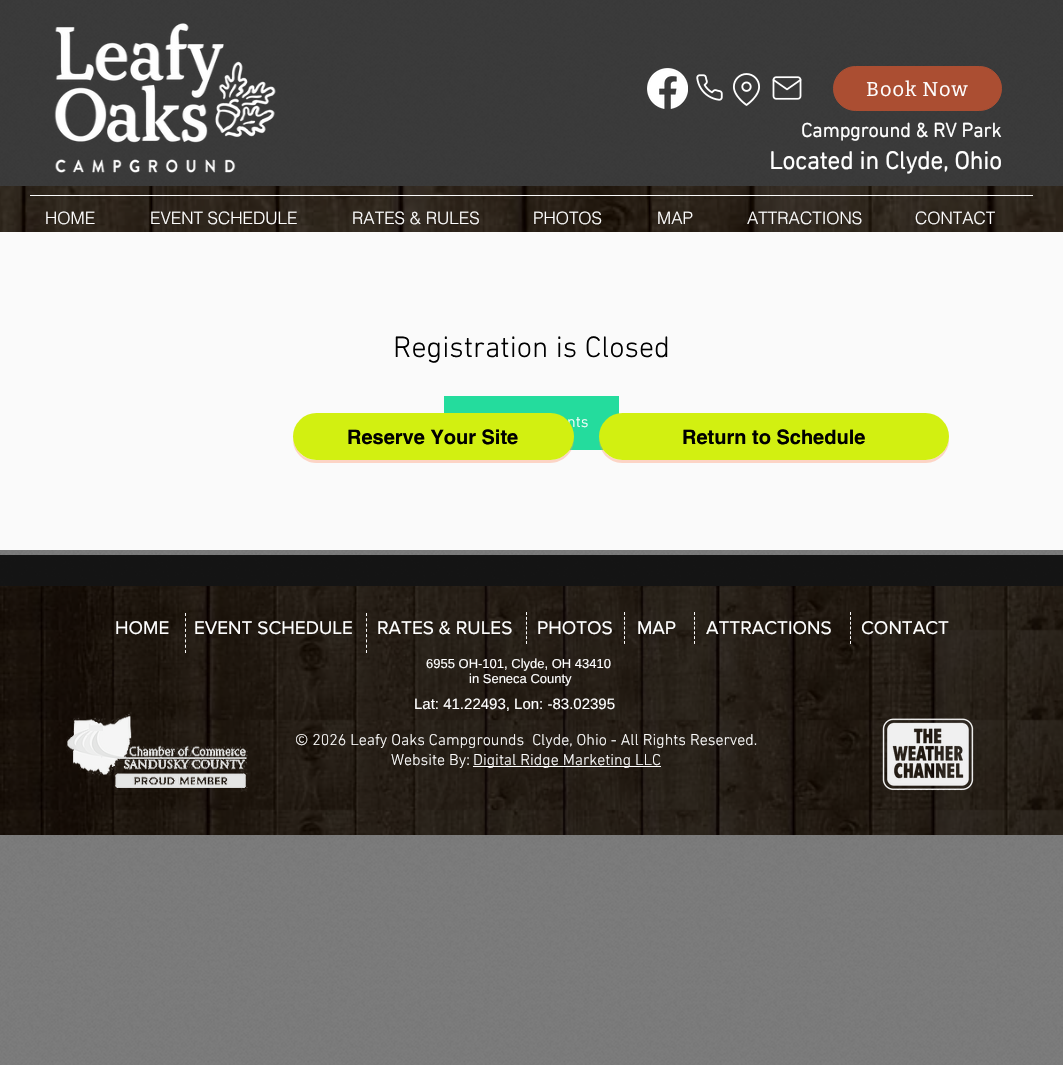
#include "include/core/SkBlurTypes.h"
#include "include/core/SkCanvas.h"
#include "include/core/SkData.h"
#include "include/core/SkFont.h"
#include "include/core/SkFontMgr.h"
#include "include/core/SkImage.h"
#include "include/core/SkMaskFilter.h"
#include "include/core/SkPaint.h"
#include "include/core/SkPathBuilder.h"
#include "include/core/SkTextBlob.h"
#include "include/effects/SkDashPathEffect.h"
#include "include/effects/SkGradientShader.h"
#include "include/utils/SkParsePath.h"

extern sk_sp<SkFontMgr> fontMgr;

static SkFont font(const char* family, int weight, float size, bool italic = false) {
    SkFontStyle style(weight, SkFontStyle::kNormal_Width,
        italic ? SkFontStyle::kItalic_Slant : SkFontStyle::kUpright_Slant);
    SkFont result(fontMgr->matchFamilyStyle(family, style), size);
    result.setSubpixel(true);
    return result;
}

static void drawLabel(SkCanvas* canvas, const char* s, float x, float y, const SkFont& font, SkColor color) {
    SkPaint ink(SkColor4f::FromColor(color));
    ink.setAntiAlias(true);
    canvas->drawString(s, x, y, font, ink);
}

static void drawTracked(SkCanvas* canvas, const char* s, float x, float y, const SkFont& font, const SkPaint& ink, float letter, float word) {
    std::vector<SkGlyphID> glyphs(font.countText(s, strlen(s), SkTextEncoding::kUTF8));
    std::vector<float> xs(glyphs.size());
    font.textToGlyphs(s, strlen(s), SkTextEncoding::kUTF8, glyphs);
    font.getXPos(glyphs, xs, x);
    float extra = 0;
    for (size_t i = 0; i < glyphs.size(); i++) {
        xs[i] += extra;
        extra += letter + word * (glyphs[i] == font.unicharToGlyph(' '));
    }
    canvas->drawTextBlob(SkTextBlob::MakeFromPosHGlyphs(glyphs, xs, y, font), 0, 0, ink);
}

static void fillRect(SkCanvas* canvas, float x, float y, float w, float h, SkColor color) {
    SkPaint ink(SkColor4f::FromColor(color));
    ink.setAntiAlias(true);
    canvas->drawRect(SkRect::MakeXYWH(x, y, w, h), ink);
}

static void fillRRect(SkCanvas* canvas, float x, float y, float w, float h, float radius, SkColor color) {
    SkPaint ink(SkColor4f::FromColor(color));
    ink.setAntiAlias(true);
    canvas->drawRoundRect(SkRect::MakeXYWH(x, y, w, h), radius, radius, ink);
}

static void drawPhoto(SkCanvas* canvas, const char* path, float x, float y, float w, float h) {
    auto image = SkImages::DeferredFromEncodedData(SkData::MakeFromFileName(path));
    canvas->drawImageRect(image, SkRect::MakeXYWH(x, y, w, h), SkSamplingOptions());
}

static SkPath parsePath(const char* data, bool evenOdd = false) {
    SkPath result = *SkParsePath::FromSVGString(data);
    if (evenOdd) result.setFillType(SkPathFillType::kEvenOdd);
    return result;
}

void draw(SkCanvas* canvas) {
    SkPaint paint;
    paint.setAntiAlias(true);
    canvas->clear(0xFF7D7D7D);
    drawPhoto(canvas, "assets/img1.png", 0, 0, 1063, 1065);
    fillRect(canvas, 0, 0, 1063, 186, 0x87000000);
    drawPhoto(canvas, "assets/img2.png", 54, 23, 222, 150);
    drawPhoto(canvas, "assets/img3.png", 647, 68, 41, 41);
    drawPhoto(canvas, "assets/img4.png", 696, 74, 27, 27);
    drawPhoto(canvas, "assets/img5.png", 733, 73, 27, 33);
    drawPhoto(canvas, "assets/img6.png", 772, 76, 30, 24);
    paint.setColor(0xFFAB4E32);
    canvas->drawRoundRect(SkRect::MakeXYWH(833.5f, 66.5f, 168, 44), 22, 22, paint);
    paint.setStroke(true);
    paint.setStrokeWidth(1);
    canvas->drawRoundRect(SkRect::MakeXYWH(833.5f, 66.5f, 168, 44), 22, 22, paint);
    SkFont font1 = font("Bitter", 400, 20);
    paint.setStroke(false);
    paint.setColor(0xFFFFFFFF);
    drawTracked(canvas, "Book Now", 866, 96, font1, paint, 1, 0);
    SkFont font2 = font("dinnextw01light", 700, 20);
    drawLabel(canvas, "Campground & RV Park", 801, 137, font2, 0xFFFFFFFF);
    SkFont font3 = font("dinnextw01light", 700, 25);
    drawLabel(canvas, "Located in Clyde, Ohio", 769, 169, font3, 0xFFFFFFFF);
    fillRect(canvas, 0, 186, 1063, 46, 0xFF000000);
    drawPhoto(canvas, "assets/img7.png", 0, 186, 1063, 46);
    fillRect(canvas, 30, 195, 1003, 1, 0xFFFAFAFA);
    SkFont font4 = font("helvetica", 300, 17);
    drawLabel(canvas, "HOME", 45, 224, font4, 0xFFFFFFFF);
    drawLabel(canvas, "EVENT SCHEDULE", 150, 224, font4, 0xFFFFFFFF);
    drawLabel(canvas, "RATES & RULES", 352, 224, font4, 0xFFFFFFFF);
    drawLabel(canvas, "PHOTOS", 533, 224, font4, 0xFFFFFFFF);
    drawLabel(canvas, "MAP", 657, 224, font4, 0xFFFFFFFF);
    drawLabel(canvas, "ATTRACTIONS", 747, 224, font4, 0xFFFFFFFF);
    drawLabel(canvas, "CONTACT", 915, 224, font4, 0xFFFFFFFF);
    fillRect(canvas, 0, 232, 1063, 318, 0xFFFAFAFA);
    SkFont font5 = font("dinnextw01light", 300, 30);
    drawLabel(canvas, "Registration is Closed", 393, 357, font5, 0xFF000000);
    fillRect(canvas, 444, 396, 175, 54, 0xFF24DC9D);
    SkFont font6 = font("dinnextw01light", 300, 16);
    drawLabel(canvas, "nts", 567, 427, font6, 0xFFFFFFFF);
    paint.setColor(0x59FF8C62);
    canvas->drawPath(parsePath("M293 438V440C293 452 304 463 316 463H550C563 463 574 452 574 440V438C573 450 563 460 550 460H316C304 460 294 450 293 438Z"), paint);
    fillRRect(canvas, 293, 413, 281, 47, 23.5f, 0xFFD2F011);
    SkFont font7 = font("helvetica", 700, 20);
    drawLabel(canvas, "Reserve Your Site", 347, 444, font7, 0xFF000000);
    canvas->drawPath(parsePath("M599 438C598 451 609 463 622 463H926C939 463 950 451 949 438C948 450 938 460 926 460H622C610 460 600 450 599 438Z"), paint);
    fillRRect(canvas, 599, 413, 350, 47, 23.5f, 0xFFD2F011);
    drawLabel(canvas, "Return to Schedule", 682, 444, font7, 0xFF000000);
    fillRect(canvas, 0, 555, 1063, 31, 0xD6000000);
    fillRect(canvas, 0, 586, 1063, 249, 0xFF000000);
    drawPhoto(canvas, "assets/img8.png", 0, 586, 1063, 249);
    paint.setStroke(true);
    paint.setColor(0xFFFAFAFA);
    paint.setPathEffect(SkDashPathEffect::Make({{3, 2.29f}}, 0));
    canvas->drawPath(parsePath("M185.5 613V653"), paint);
    paint.setPathEffect(nullptr);
    paint.setPathEffect(SkDashPathEffect::Make({{3, 2.29f}}, 0));
    canvas->drawPath(parsePath("M366.5 613V653"), paint);
    paint.setPathEffect(nullptr);
    paint.setPathEffect(SkDashPathEffect::Make({{3, 1.83f}}, 0));
    canvas->drawPath(parsePath("M526.5 612V644"), paint);
    paint.setPathEffect(nullptr);
    paint.setPathEffect(SkDashPathEffect::Make({{3, 1.83f}}, 0));
    canvas->drawPath(parsePath("M624.5 612V644"), paint);
    paint.setPathEffect(nullptr);
    paint.setPathEffect(SkDashPathEffect::Make({{3, 1.83f}}, 0));
    canvas->drawPath(parsePath("M694.5 612V644"), paint);
    paint.setPathEffect(nullptr);
    paint.setPathEffect(SkDashPathEffect::Make({{3, 1.83f}}, 0));
    canvas->drawPath(parsePath("M850.5 612V644"), paint);
    paint.setPathEffect(nullptr);
    SkFont font8 = font("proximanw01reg", 400, 19);
    drawLabel(canvas, "HOME", 115, 634, font8, 0xFFFFFFFF);
    drawLabel(canvas, "EVENT SCHEDULE", 194, 634, font8, 0xFFFFFFFF);
    drawLabel(canvas, "RATES & RULES", 377, 634, font8, 0xFFFFFFFF);
    drawLabel(canvas, "PHOTOS", 537, 634, font8, 0xFFFFFFFF);
    drawLabel(canvas, "MAP", 637, 634, font8, 0xFFFFFFFF);
    drawLabel(canvas, "ATTRACTIONS", 706, 634, font8, 0xFFFFFFFF);
    drawLabel(canvas, "CONTACT", 861, 634, font8, 0xFFFFFFFF);
    SkFont font9 = font("Liberation Sans", 400, 13);
    drawLabel(canvas, "6955 OH-101, Clyde, OH 43410", 426, 668, font9, 0xFFFFFFFF);
    drawLabel(canvas, "in Seneca County", 469, 683, font9, 0xFFFFFFFF);
    SkFont font10 = font("Liberation Sans", 400, 15);
    drawLabel(canvas, "Lat: 41.22493, Lon: -83.02395", 414, 709, font10, 0xFFFFFFFF);
    drawPhoto(canvas, "assets/img9.png", 66, 712, 182, 80);
    drawLabel(canvas, "© 2026 Leafy Oaks Campgrounds  Clyde, Ohio - All Rights Reserved.", 295, 745, font6, 0xFFFFFFFF);
    drawLabel(canvas, "Website By:", 391, 765, font6, 0xFFFFFFFF);
    fillRect(canvas, 473, 766, 188, 1, 0xFFFFFFFF);
    drawLabel(canvas, "Digital Ridge Marketing LLC", 473, 765, font6, 0xFFFFFFFF);
    drawPhoto(canvas, "assets/img10.png", 882, 718, 92, 73);
}
